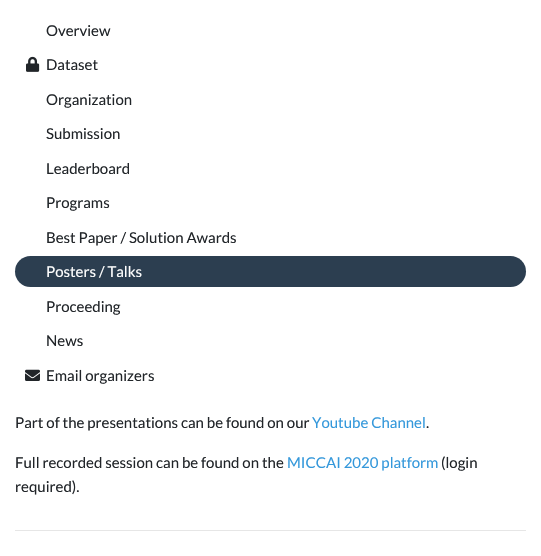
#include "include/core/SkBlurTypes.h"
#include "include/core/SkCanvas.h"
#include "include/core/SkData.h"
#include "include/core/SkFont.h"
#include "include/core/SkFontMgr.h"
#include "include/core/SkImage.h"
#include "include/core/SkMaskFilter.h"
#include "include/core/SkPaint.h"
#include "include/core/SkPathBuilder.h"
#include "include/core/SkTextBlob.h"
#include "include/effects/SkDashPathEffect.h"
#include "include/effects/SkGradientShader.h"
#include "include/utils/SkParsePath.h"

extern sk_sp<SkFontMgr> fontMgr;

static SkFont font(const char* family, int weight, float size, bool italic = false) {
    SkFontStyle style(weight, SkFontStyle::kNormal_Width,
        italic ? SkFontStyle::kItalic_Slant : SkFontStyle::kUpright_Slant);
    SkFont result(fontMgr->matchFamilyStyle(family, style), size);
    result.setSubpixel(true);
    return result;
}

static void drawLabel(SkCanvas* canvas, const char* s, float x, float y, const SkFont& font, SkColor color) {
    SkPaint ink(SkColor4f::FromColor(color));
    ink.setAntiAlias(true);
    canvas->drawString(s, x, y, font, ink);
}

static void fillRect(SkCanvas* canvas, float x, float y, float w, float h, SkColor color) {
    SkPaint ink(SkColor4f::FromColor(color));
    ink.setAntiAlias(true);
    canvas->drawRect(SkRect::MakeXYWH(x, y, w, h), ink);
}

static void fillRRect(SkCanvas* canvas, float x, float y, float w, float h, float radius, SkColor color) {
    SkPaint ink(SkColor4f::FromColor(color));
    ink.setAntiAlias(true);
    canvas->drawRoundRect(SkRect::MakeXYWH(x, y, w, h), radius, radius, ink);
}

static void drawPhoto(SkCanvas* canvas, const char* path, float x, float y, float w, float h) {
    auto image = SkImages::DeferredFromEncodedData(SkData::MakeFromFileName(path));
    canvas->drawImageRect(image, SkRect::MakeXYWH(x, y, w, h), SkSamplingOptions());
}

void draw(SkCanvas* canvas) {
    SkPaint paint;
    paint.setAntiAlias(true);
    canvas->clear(0xFFFFFFFF);
    SkFont font1 = font("Lato", 400, 15);
    drawLabel(canvas, "Overview", 46, 36, font1, 0xFF212529);
    drawPhoto(canvas, "assets/img1.png", 26, 56, 14, 16);
    drawLabel(canvas, "Dataset", 46, 70, font1, 0xFF212529);
    drawLabel(canvas, "Organization", 46, 105, font1, 0xFF212529);
    drawLabel(canvas, "Submission", 46, 139, font1, 0xFF212529);
    drawLabel(canvas, "Leaderboard", 46, 174, font1, 0xFF212529);
    drawLabel(canvas, "Programs", 46, 208, font1, 0xFF212529);
    drawLabel(canvas, "Best Paper / Solution Awards", 46, 243, font1, 0xFF212529);
    fillRRect(canvas, 15, 256, 511, 31, 15.5f, 0xFF2C3E50);
    drawLabel(canvas, "Posters / Talks", 46, 277, font1, 0xFFFFFFFF);
    drawLabel(canvas, "Proceeding", 46, 312, font1, 0xFF212529);
    drawLabel(canvas, "News", 46, 346, font1, 0xFF212529);
    drawPhoto(canvas, "assets/img2.png", 25, 369, 15, 12);
    drawLabel(canvas, "Email organizers", 46, 381, font1, 0xFF212529);
    drawLabel(canvas, "Part of the presentations can be found on our", 15, 428, font1, 0xFF212529);
    drawLabel(canvas, "Youtube Channel", 312, 428, font1, 0xFF3498DB);
    drawLabel(canvas, ".", 426, 428, font1, 0xFF212529);
    drawLabel(canvas, "Full recorded session can be found on the", 15, 468, font1, 0xFF212529);
    drawLabel(canvas, "MICCAI 2020 platform", 287, 468, font1, 0xFF3498DB);
    drawLabel(canvas, "(login", 441, 468, font1, 0xFF212529);
    drawLabel(canvas, "required).", 15, 492, font1, 0xFF212529);
    fillRect(canvas, 15, 530, 511, 1, 0xFFE6E6E6);
}
